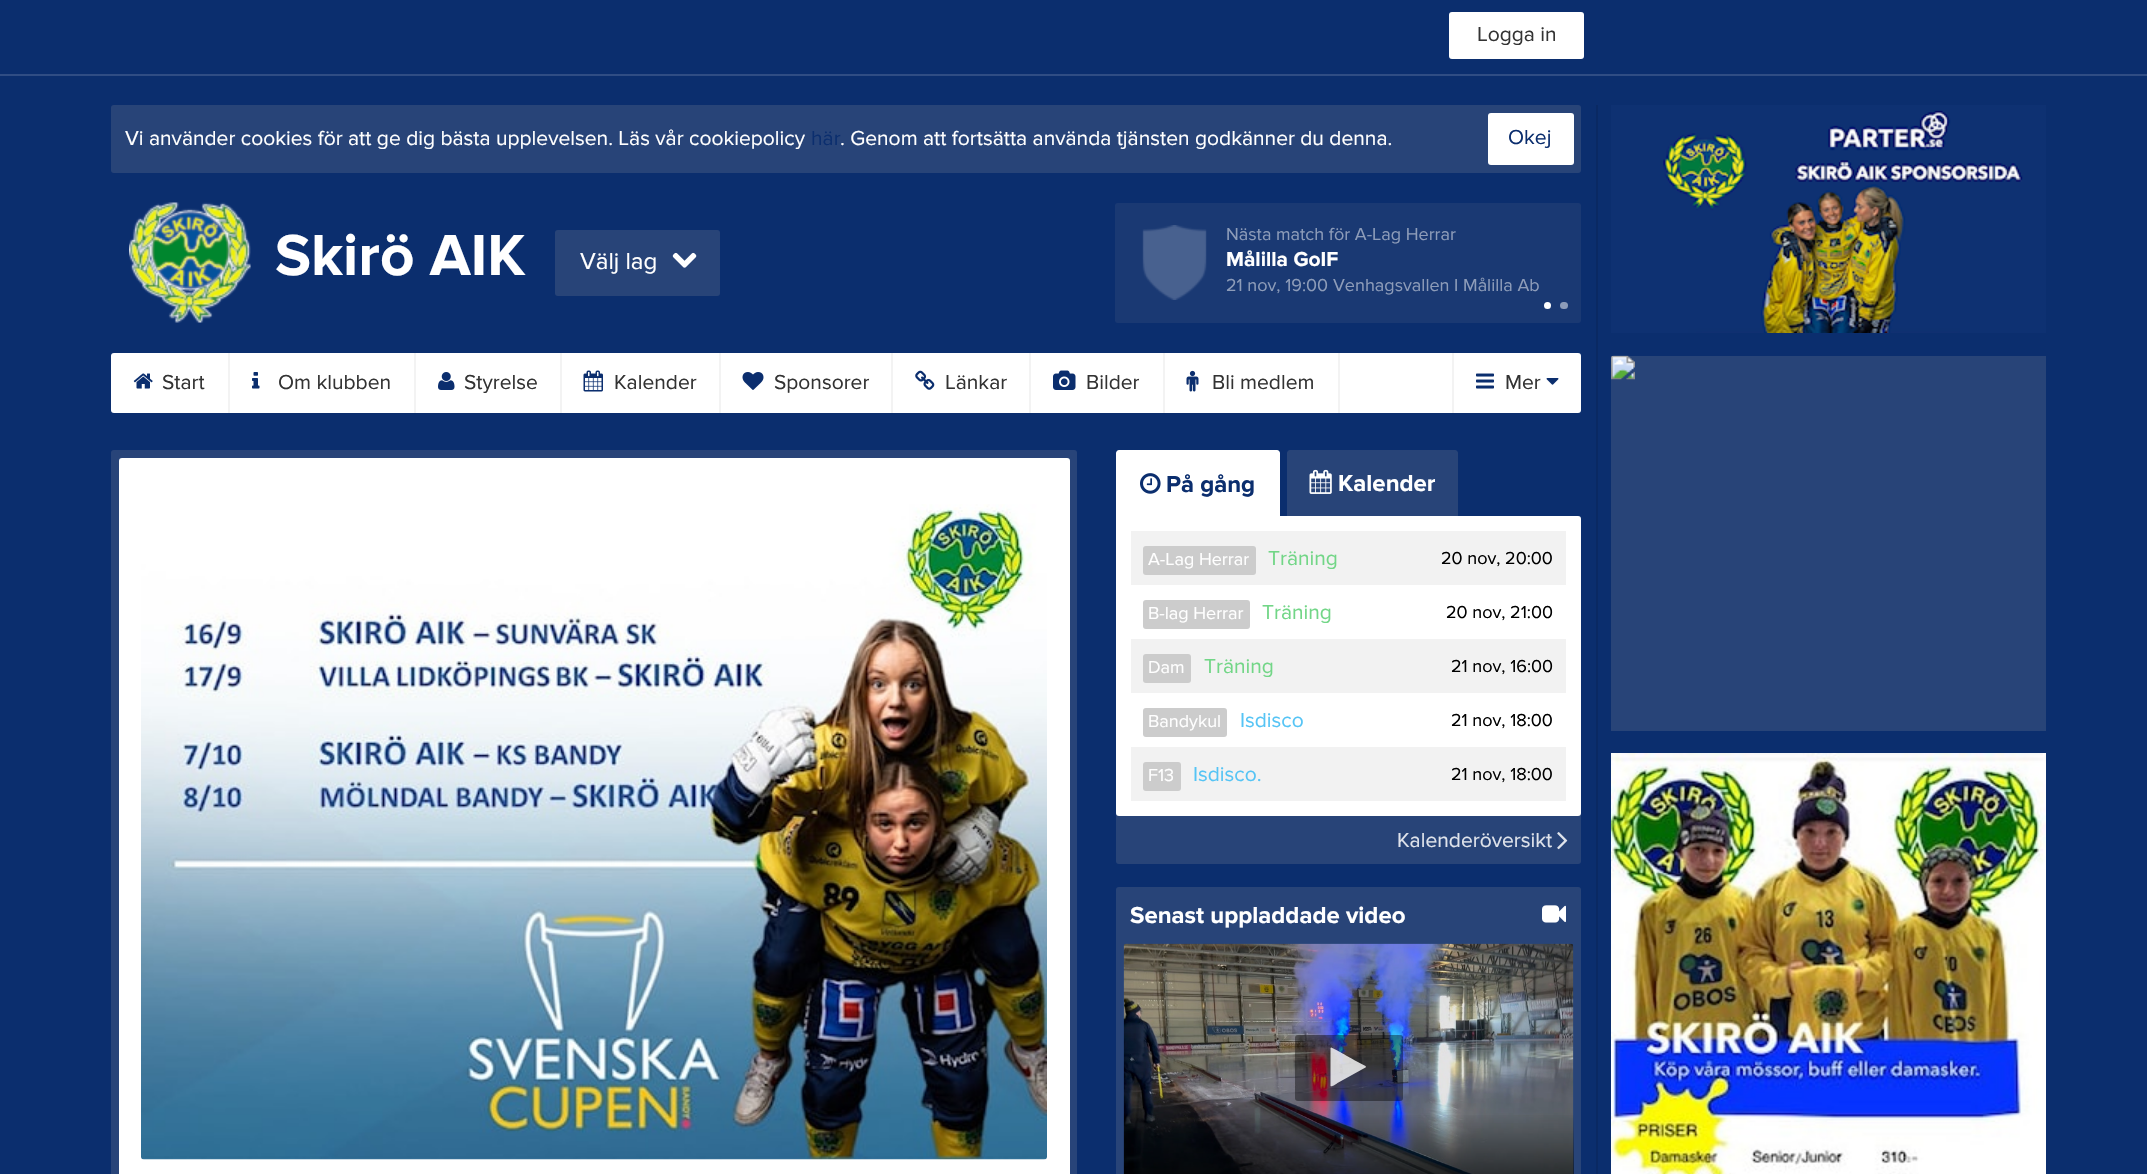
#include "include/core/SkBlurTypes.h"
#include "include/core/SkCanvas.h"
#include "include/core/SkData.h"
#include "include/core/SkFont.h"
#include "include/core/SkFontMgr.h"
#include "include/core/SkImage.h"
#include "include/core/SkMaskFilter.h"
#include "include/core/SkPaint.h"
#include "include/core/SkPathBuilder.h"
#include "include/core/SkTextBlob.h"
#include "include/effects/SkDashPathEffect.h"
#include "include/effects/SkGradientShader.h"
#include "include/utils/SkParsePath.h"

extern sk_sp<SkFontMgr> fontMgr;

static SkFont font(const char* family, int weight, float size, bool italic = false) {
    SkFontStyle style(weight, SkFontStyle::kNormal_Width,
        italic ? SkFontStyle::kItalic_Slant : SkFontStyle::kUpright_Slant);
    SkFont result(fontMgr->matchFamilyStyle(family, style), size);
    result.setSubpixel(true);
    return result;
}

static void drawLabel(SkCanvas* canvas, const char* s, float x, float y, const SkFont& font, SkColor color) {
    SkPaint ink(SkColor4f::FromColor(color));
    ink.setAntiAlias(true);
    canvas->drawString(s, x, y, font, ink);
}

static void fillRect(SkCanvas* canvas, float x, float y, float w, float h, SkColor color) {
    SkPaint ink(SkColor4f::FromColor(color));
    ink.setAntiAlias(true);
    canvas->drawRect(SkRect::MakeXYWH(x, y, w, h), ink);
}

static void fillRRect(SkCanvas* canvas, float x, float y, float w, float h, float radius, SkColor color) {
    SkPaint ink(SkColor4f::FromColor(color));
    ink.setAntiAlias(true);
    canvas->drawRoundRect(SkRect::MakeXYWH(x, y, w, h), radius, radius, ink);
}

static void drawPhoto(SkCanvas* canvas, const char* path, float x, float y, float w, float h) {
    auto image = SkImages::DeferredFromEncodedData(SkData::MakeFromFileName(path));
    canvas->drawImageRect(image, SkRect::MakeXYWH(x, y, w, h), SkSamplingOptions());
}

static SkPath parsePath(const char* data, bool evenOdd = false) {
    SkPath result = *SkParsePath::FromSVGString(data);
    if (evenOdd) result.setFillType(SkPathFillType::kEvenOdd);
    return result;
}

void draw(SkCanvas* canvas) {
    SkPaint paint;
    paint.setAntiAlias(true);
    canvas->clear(0xFF0B2E6E);
    fillRect(canvas, 0, 74, 2147, 2, 0xFF304D84);
    fillRRect(canvas, 1449, 12, 135, 47, 3, 0xFFFFFFFF);
    SkFont font1 = font("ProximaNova", 400, 21);
    drawLabel(canvas, "Logga in", 1477, 41, font1, 0xFF333333);
    fillRRect(canvas, 111, 105, 1470, 68, 3, 0xFF284478);
    drawLabel(canvas, "Vi använder cookies för att ge dig bästa upplevelsen. Läs vår cookiepolicy", 125, 145, font1, 0xFFFFFFFF);
    drawLabel(canvas, "här", 811, 145, font1, 0xFF0B2E6E);
    drawLabel(canvas, ". Genom att fortsätta använda tjänsten godkänner du denna.", 840, 145, font1, 0xFFFFFFFF);
    fillRRect(canvas, 1488, 113, 86, 52, 3, 0xFFFFFFFF);
    drawLabel(canvas, "Okej", 1508, 144, font1, 0xFF0B2E6E);
    drawPhoto(canvas, "assets/img1.png", 129, 202, 122, 121);
    SkFont font2 = font("ProximaNova", 700, 60);
    drawLabel(canvas, "Skirö AIK", 275, 275, font2, 0xFFFFFFFF);
    fillRRect(canvas, 555, 230, 165, 66, 3, 0xFF284478);
    SkFont font3 = font("ProximaNova", 400, 24);
    drawLabel(canvas, "Välj lag", 580, 269, font3, 0xFFFFFFFF);
    drawPhoto(canvas, "assets/img2.png", 672, 252, 25, 16);
    fillRRect(canvas, 1115, 203, 466, 120, 3, 0xFF1A3973);
    drawPhoto(canvas, "assets/img3.png", 1142, 225, 65, 75);
    SkFont font4 = font("ProximaNova", 400, 18);
    drawLabel(canvas, "Nästa match för A-Lag Herrar", 1226, 240, font4, 0xFF8D9CB9);
    SkFont font5 = font("ProximaNova", 700, 21);
    drawLabel(canvas, "Målilla GoIF", 1226, 266, font5, 0xFFFFFFFF);
    drawLabel(canvas, "21 nov, 19:00", 1226, 291, font4, 0xFF8D9CB9);
    drawLabel(canvas, "Venhagsvallen I Målilla Ab", 1333, 291, font4, 0xFF8D9CB9);
    paint.setColor(0xFFFFFFFF);
    canvas->drawCircle(1547.5f, 305.5f, 3.5f, paint);
    fillRRect(canvas, 1560, 302, 8, 7, 3.5f, 0xFF8D9CB9);
    fillRRect(canvas, 111, 353, 1470, 60, 3, 0xFFFFFFFF);
    fillRect(canvas, 228, 353, 2, 60, 0xFFF3F3F3);
    drawPhoto(canvas, "assets/img4.png", 133, 373, 20, 16);
    drawLabel(canvas, "Start", 162, 389, font1, 0xFF333333);
    fillRect(canvas, 414, 353, 2, 60, 0xFFF3F3F3);
    drawPhoto(canvas, "assets/img5.png", 252, 372, 8, 17);
    drawLabel(canvas, "Om klubben", 278, 389, font1, 0xFF333333);
    fillRect(canvas, 560, 353, 2, 60, 0xFFF3F3F3);
    drawPhoto(canvas, "assets/img6.png", 438, 372, 17, 18);
    drawLabel(canvas, "Styrelse", 464, 389, font1, 0xFF333333);
    fillRect(canvas, 719, 353, 2, 60, 0xFFF3F3F3);
    drawPhoto(canvas, "assets/img7.png", 583, 370, 20, 22);
    drawLabel(canvas, "Kalender", 614, 389, font1, 0xFF333333);
    fillRect(canvas, 891, 353, 2, 60, 0xFFF3F3F3);
    drawPhoto(canvas, "assets/img8.png", 742, 372, 22, 18);
    drawLabel(canvas, "Sponsorer", 774, 389, font1, 0xFF333333);
    fillRect(canvas, 1029, 353, 2, 60, 0xFFF3F3F3);
    drawPhoto(canvas, "assets/img9.png", 915, 370, 20, 20);
    drawLabel(canvas, "Länkar", 945, 389, font1, 0xFF333333);
    fillRect(canvas, 1163, 353, 2, 60, 0xFFF3F3F3);
    drawPhoto(canvas, "assets/img10.png", 1053, 370, 23, 20);
    drawLabel(canvas, "Bilder", 1086, 389, font1, 0xFF333333);
    fillRect(canvas, 1338, 353, 2, 60, 0xFFF3F3F3);
    drawPhoto(canvas, "assets/img11.png", 1186, 370, 13, 22);
    drawLabel(canvas, "Bli medlem", 1212, 389, font1, 0xFF333333);
    fillRect(canvas, 1452, 353, 2, 60, 0xFFF3F3F3);
    drawPhoto(canvas, "assets/img12.png", 1476, 373, 18, 16);
    drawLabel(canvas, "Mer", 1505, 389, font1, 0xFF333333);
    drawPhoto(canvas, "assets/img13.png", 1546, 378, 13, 7);
    fillRRect(canvas, 111, 450, 966, 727, 3, 0xFF284479);
    fillRRect(canvas, 119, 458, 951, 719, 3, 0xFFFFFFFF);
    drawPhoto(canvas, "assets/img14.png", 141, 504, 906, 656);
    canvas->drawPath(parsePath("M1119 450H1277C1278.5 450 1280 451.5 1280 453V516H1116V453C1116 451.5 1117.5 450 1119 450Z"), paint);
    drawPhoto(canvas, "assets/img15.png", 1140, 473, 21, 21);
    SkFont font6 = font("ProximaNova", 700, 24);
    drawLabel(canvas, "På gång", 1166, 492, font6, 0xFF0B2E6E);
    fillRRect(canvas, 1116, 516, 465, 348, 3, 0xFF284478);
    fillRRect(canvas, 1116, 516, 465, 300, 3, 0xFFFFFFFF);
    fillRect(canvas, 1116, 516, 3, 3, 0xFFFFFFFF);
    paint.setColor(0xFF284478);
    canvas->drawPath(parsePath("M1290 450H1455C1456.5 450 1458 451.5 1458 453V516H1287V453C1287 451.5 1288.5 450 1290 450Z"), paint);
    drawPhoto(canvas, "assets/img16.png", 1309, 469, 23, 25);
    drawLabel(canvas, "Kalender", 1338, 491, font6, 0xFFFFFFFF);
    fillRect(canvas, 1131, 531, 435, 54, 0xFFF2F2F2);
    fillRRect(canvas, 1143, 546, 113, 29, 3, 0xFFCCCCCC);
    drawLabel(canvas, "A-Lag Herrar", 1148, 565, font4, 0xFFFFFFFF);
    drawLabel(canvas, "Träning", 1268, 565, font1, 0xFF72D687);
    drawLabel(canvas, "20 nov, 20:00", 1441, 564, font4, 0xFF000000);
    fillRRect(canvas, 1143, 600, 107, 29, 3, 0xFFCCCCCC);
    drawLabel(canvas, "B-lag Herrar", 1148, 619, font4, 0xFFFFFFFF);
    drawLabel(canvas, "Träning", 1262, 619, font1, 0xFF72D687);
    drawLabel(canvas, "20 nov, 21:00", 1446, 618, font4, 0xFF000000);
    fillRect(canvas, 1131, 639, 435, 54, 0xFFF2F2F2);
    fillRRect(canvas, 1143, 654, 48, 29, 3, 0xFFCCCCCC);
    drawLabel(canvas, "Dam", 1148, 673, font4, 0xFFFFFFFF);
    drawLabel(canvas, "Träning", 1204, 673, font1, 0xFF72D687);
    drawLabel(canvas, "21 nov, 16:00", 1451, 672, font4, 0xFF000000);
    fillRRect(canvas, 1143, 708, 84, 29, 3, 0xFFCCCCCC);
    drawLabel(canvas, "Bandykul", 1148, 727, font4, 0xFFFFFFFF);
    drawLabel(canvas, "Isdisco", 1240, 727, font1, 0xFF55C4F5);
    drawLabel(canvas, "21 nov, 18:00", 1451, 726, font4, 0xFF000000);
    fillRect(canvas, 1131, 747, 435, 54, 0xFFF2F2F2);
    fillRRect(canvas, 1143, 762, 38, 29, 3, 0xFFCCCCCC);
    drawLabel(canvas, "F13", 1148, 781, font4, 0xFFFFFFFF);
    drawLabel(canvas, "Isdisco.", 1193, 781, font1, 0xFF55C4F5);
    drawLabel(canvas, "21 nov, 18:00", 1451, 780, font4, 0xFF000000);
    drawLabel(canvas, "Kalenderöversikt", 1397, 847, font1, 0xFFDFE3EB);
    drawPhoto(canvas, "assets/img17.png", 1557, 832, 11, 18);
    fillRRect(canvas, 1116, 887, 465, 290, 3, 0xFF284478);
    drawLabel(canvas, "Senast uppladdade video", 1130, 923, font6, 0xFFFFFFFF);
    drawPhoto(canvas, "assets/img18.png", 1542, 905, 24, 18);
    drawPhoto(canvas, "assets/img19.png", 1123, 943, 451, 231);
    fillRRect(canvas, 1295, 1035, 108, 66, 3, 0x66000000);
    paint.setColor(0xCCFFFFFF);
    canvas->drawPath(parsePath("M1365.5 1067.5L1337.5 1083C1337 1083.5 1331.5 1087.5 1330.5 1086V1048L1331 1047.5C1332 1047.5 1352 1058.5 1354 1060L1365.5 1066L1366 1067Z"), paint);
    {
        const SkColor colors[] = {0x00000000, 0xCC000000};
        const float stops[] = {0.2f, 1};
        const SkPoint ends[] = {{1349, 1091}, {1349, 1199}};
        paint.setShader(SkGradientShader::MakeLinear(ends, colors, stops, 2, SkTileMode::kClamp));
        paint.setAlpha(255);
    }
    canvas->drawRect(SkRect::MakeXYWH(1124, 1115, 450, 59), paint);
    fillRect(canvas, 1596, 105, 2, 1069, 0xFF0A2963);
    drawPhoto(canvas, "assets/img20.png", 1611, 105, 435, 228);
    fillRect(canvas, 1611, 356, 435, 375, 0xFF284478);
    drawPhoto(canvas, "assets/img21.png", 1611, 355, 24, 25);
    drawPhoto(canvas, "assets/img22.png", 1611, 753, 435, 421);
}
